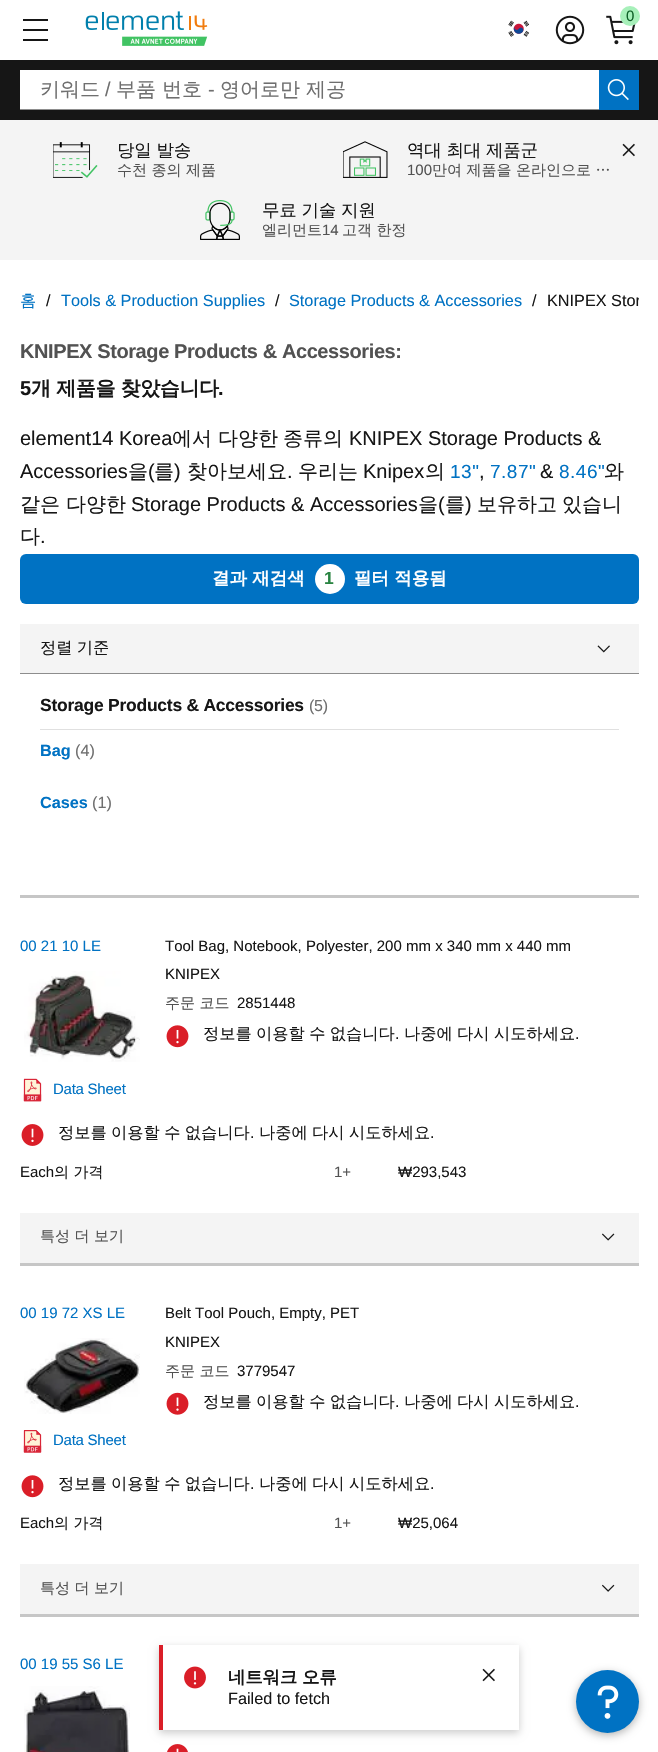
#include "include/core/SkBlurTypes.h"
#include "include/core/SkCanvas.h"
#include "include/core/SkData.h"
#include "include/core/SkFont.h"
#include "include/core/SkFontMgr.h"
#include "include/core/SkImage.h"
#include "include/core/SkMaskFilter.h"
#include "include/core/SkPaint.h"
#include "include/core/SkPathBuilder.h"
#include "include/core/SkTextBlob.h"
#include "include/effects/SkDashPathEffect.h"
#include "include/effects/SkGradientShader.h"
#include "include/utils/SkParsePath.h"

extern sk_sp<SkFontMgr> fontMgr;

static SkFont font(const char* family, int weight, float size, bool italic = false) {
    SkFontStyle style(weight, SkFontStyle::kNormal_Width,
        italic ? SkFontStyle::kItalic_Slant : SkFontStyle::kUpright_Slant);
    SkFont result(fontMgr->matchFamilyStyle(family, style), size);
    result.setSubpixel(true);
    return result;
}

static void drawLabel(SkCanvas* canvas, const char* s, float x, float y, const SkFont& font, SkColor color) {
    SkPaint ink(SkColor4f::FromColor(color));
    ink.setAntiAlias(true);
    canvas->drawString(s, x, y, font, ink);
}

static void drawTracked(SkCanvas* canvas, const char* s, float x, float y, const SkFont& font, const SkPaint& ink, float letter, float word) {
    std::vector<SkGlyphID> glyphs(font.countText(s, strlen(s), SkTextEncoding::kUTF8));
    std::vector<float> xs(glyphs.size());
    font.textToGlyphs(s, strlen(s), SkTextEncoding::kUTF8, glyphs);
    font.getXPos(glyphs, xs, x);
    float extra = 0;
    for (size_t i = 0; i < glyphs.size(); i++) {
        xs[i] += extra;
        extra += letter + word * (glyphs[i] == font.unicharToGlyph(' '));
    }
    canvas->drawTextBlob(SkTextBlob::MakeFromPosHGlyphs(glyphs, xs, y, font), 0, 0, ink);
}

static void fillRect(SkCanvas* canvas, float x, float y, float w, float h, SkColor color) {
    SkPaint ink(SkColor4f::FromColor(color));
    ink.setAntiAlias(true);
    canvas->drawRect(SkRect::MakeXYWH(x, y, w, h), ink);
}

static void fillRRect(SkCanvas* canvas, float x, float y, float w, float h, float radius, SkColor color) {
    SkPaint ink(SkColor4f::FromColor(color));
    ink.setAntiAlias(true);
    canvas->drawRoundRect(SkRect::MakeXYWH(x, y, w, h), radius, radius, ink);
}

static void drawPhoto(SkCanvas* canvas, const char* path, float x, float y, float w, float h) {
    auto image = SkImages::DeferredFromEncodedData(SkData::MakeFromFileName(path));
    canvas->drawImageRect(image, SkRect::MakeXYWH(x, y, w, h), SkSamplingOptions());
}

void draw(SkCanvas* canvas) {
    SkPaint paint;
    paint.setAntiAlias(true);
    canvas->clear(0xFFFFFFFF);
    fillRect(canvas, 23, 19, 25, 2, 0xFF161616);
    fillRect(canvas, 23, 29, 25, 2, 0xFF161616);
    fillRect(canvas, 23, 39, 25, 2, 0xFF161616);
    drawPhoto(canvas, "assets/img1.png", 85, 11, 123, 35);
    drawPhoto(canvas, "assets/img2.png", 508, 20, 22, 17);
    drawPhoto(canvas, "assets/img3.png", 555, 15, 30, 30);
    drawPhoto(canvas, "assets/img4.png", 606, 15, 30, 30);
    paint.setColor(0xFFA7F0BA);
    canvas->drawCircle(630, 16, 10, paint);
    SkFont font1 = font("Liberation Sans", 400, 15);
    drawLabel(canvas, "0", 626, 21, font1, 0xFF0E6027);
    fillRect(canvas, 0, 60, 658, 60, 0xFF161616);
    fillRect(canvas, 20, 70, 579, 39, 0xFFFFFFFF);
    fillRect(canvas, 20, 109, 579, 1, 0xFF8D8D8D);
    SkFont font2 = font("WenQuanYi Zen Hei", 500, 20);
    drawLabel(canvas, "키워드", 40, 96, font2, 0xFF6F6F6F);
    SkFont font3 = font("Liberation Sans", 400, 20);
    drawLabel(canvas, "/", 105, 96, font3, 0xFF6F6F6F);
    drawLabel(canvas, "부품 번호", 116, 96, font2, 0xFF6F6F6F);
    drawLabel(canvas, "-", 208, 96, font3, 0xFF6F6F6F);
    drawLabel(canvas, "영어로만 제공", 220, 96, font2, 0xFF6F6F6F);
    fillRect(canvas, 599, 70, 40, 40, 0xFF0072C3);
    drawPhoto(canvas, "assets/img5.png", 607, 79, 22, 22);
    fillRect(canvas, 0, 120, 658, 140, 0xFFF4F4F4);
    drawPhoto(canvas, "assets/img6.png", 53, 142, 45, 36);
    SkFont font4 = font("WenQuanYi Zen Hei", 500, 17.5f);
    paint.setColor(0xFF161616);
    drawTracked(canvas, "당일 발송", 117, 156, font4, paint, -0.25f, 0);
    SkFont font5 = font("WenQuanYi Zen Hei", 500, 15);
    drawLabel(canvas, "수천 종의 제품", 117, 175, font5, 0xFF525252);
    drawPhoto(canvas, "assets/img7.png", 343, 141, 45, 37);
    drawTracked(canvas, "역대 최대 제품군", 407, 156, font4, paint, -0.25f, 0);
    drawLabel(canvas, "100", 407, 175, font1, 0xFF525252);
    drawLabel(canvas, "만여 제품을 온라인으로 …", 432, 175, font5, 0xFF525252);
    drawPhoto(canvas, "assets/img8.png", 200, 200, 40, 40);
    drawTracked(canvas, "무료 기술 지원", 262, 216, font4, paint, -0.25f, 0);
    drawLabel(canvas, "엘리먼트", 262, 235, font5, 0xFF525252);
    drawLabel(canvas, "14", 322, 235, font1, 0xFF525252);
    drawLabel(canvas, "고객 한정", 342, 235, font5, 0xFF525252);
    drawPhoto(canvas, "assets/img9.png", 622, 143, 13, 14);
    SkFont font6 = font("WenQuanYi Zen Hei", 500, 16.25f);
    drawLabel(canvas, "홈", 20, 306, font6, 0xFF0072C3);
    SkFont font7 = font("Liberation Sans", 400, 16.25f);
    drawLabel(canvas, "/", 46, 306, font7, 0xFF161616);
    drawLabel(canvas, "Tools & Production Supplies", 61, 306, font7, 0xFF0072C3);
    drawLabel(canvas, "/", 275, 306, font7, 0xFF161616);
    drawLabel(canvas, "Storage Products & Accessories", 289, 306, font7, 0xFF0072C3);
    drawLabel(canvas, "/", 532, 306, font7, 0xFF161616);
    canvas->save();
    canvas->clipRect(SkRect::MakeXYWH(20, 290, 619, 38));
    drawLabel(canvas, "KNIPEX Stor", 547, 306, font7, 0xFF161616);
    canvas->restore();
    SkFont font8 = font("Liberation Sans", 700, 20);
    paint.setColor(0xFF525252);
    drawTracked(canvas, "KNIPEX Storage Products & Accessories:", 20, 358, font8, paint, -0.4f, 0);
    paint.setColor(0xFF161616);
    drawTracked(canvas, "5", 20, 395, font8, paint, -0.4f, 0);
    SkFont font9 = font("WenQuanYi Zen Hei", 700, 20);
    drawTracked(canvas, "개 제품을 찾았습니다", 31, 395, font9, paint, -0.4f, 0);
    drawTracked(canvas, ".", 218, 395, font8, paint, -0.4f, 0);
    drawLabel(canvas, "element14 Korea", 20, 445, font3, 0xFF161616);
    drawLabel(canvas, "에서", 172, 445, font2, 0xFF161616);
    drawLabel(canvas, "다양한", 218, 445, font2, 0xFF161616);
    drawLabel(canvas, "종류의", 283, 445, font2, 0xFF161616);
    drawLabel(canvas, "KNIPEX Storage Products &", 349, 445, font3, 0xFF161616);
    drawLabel(canvas, "Accessories", 20, 478, font3, 0xFF161616);
    drawLabel(canvas, "을", 128, 478, font2, 0xFF161616);
    drawLabel(canvas, "(", 148, 478, font3, 0xFF161616);
    drawLabel(canvas, "를", 154, 478, font2, 0xFF161616);
    drawLabel(canvas, ")", 174, 478, font3, 0xFF161616);
    drawLabel(canvas, "찾아보세요", 187, 478, font2, 0xFF161616);
    drawLabel(canvas, ".", 287, 478, font3, 0xFF161616);
    drawLabel(canvas, "우리는", 298, 478, font2, 0xFF161616);
    drawLabel(canvas, "Knipex", 363, 478, font3, 0xFF161616);
    drawLabel(canvas, "의", 425, 478, font2, 0xFF161616);
    SkFont font10 = font("Liberation Sans", 400, 19);
    paint.setColor(0xFF0072C3);
    drawTracked(canvas, "13\"", 450, 478, font10, paint, 0.5f, 0);
    drawLabel(canvas, ",", 479, 478, font3, 0xFF161616);
    drawTracked(canvas, "7.87\"", 490, 478, font10, paint, 0.5f, 0);
    drawLabel(canvas, "&", 540, 478, font3, 0xFF161616);
    drawTracked(canvas, "8.46\"", 559, 478, font10, paint, 0.5f, 0);
    drawLabel(canvas, "와", 604, 478, font2, 0xFF161616);
    drawLabel(canvas, "같은", 20, 511, font2, 0xFF161616);
    drawLabel(canvas, "다양한", 66, 511, font2, 0xFF161616);
    drawLabel(canvas, "Storage Products & Accessories", 131, 511, font3, 0xFF161616);
    drawLabel(canvas, "을", 418, 511, font2, 0xFF161616);
    drawLabel(canvas, "(", 438, 511, font3, 0xFF161616);
    drawLabel(canvas, "를", 445, 511, font2, 0xFF161616);
    drawLabel(canvas, ")", 465, 511, font3, 0xFF161616);
    drawLabel(canvas, "보유하고", 477, 511, font2, 0xFF161616);
    drawLabel(canvas, "있습니", 562, 511, font2, 0xFF161616);
    drawLabel(canvas, "다", 20, 543, font2, 0xFF161616);
    drawLabel(canvas, ".", 40, 543, font3, 0xFF161616);
    fillRRect(canvas, 20, 554, 619, 50, 6, 0xFF0072C3);
    SkFont font11 = font("WenQuanYi Zen Hei", 700, 17.5f);
    drawLabel(canvas, "결과 재검색", 212, 584, font11, 0xFFFFFFFF);
    paint.setColor(0xFFFFFFFF);
    canvas->drawCircle(330, 579, 15, paint);
    SkFont font12 = font("Liberation Sans", 700, 17.5f);
    drawLabel(canvas, "1", 324, 584, font12, 0xFF2A8442);
    drawLabel(canvas, "필터 적용됨", 354, 584, font11, 0xFFFFFFFF);
    fillRect(canvas, 20, 624, 619, 49, 0xFFF4F4F4);
    fillRect(canvas, 20, 673, 619, 1, 0xFF8D8D8D);
    paint.setColor(0xFF161616);
    drawTracked(canvas, "정렬 기준", 40, 653, font6, paint, 0, -0.5f);
    drawPhoto(canvas, "assets/img10.png", 597, 645, 13, 8);
    fillRect(canvas, 40, 729, 579, 1, 0xFFE0E0E0);
    drawTracked(canvas, "Storage Products & Accessories", 40, 711, font12, paint, -0.25f, 0);
    SkFont font13 = font("Liberation Sans", 400, 16);
    paint.setColor(0xFF6F6F6F);
    drawTracked(canvas, "(5)", 309, 711, font13, paint, -0.25f, 0);
    SkFont font14 = font("Liberation Sans", 700, 16.25f);
    drawLabel(canvas, "Bag", 40, 756, font14, 0xFF0072C3);
    drawLabel(canvas, "(4)", 75, 756, font7, 0xFF6F6F6F);
    drawLabel(canvas, "Cases", 40, 808, font14, 0xFF0072C3);
    drawLabel(canvas, "(1)", 92, 808, font7, 0xFF6F6F6F);
    fillRect(canvas, 20, 895, 619, 3, 0xFFC6C6C6);
    drawLabel(canvas, "00 21 10 LE", 20, 951, font1, 0xFF0072C3);
    drawPhoto(canvas, "assets/img11.png", 24, 971, 116, 91);
    drawPhoto(canvas, "assets/img12.png", 23, 1078, 19, 24);
    paint.setColor(0xFF0072C3);
    drawTracked(canvas, "Data Sheet", 53, 1094, font1, paint, -0.25f, 0);
    drawLabel(canvas, "Tool Bag, Notebook, Polyester, 200 mm x 340 mm x 440 mm", 165, 951, font1, 0xFF161616);
    drawLabel(canvas, "KNIPEX", 165, 979, font1, 0xFF161616);
    drawLabel(canvas, "주문 코드", 165, 1008, font5, 0xFF525252);
    drawLabel(canvas, "2851448", 237, 1008, font1, 0xFF161616);
    drawPhoto(canvas, "assets/img13.png", 166, 1025, 23, 23);
    paint.setColor(0xFF161616);
    drawTracked(canvas, "정보를 이용할 수 없습니다", 203, 1039, font6, paint, 0, -0.5f);
    drawLabel(canvas, ".", 395, 1039, font7, 0xFF161616);
    drawTracked(canvas, "나중에 다시 시도하세요", 404, 1039, font6, paint, 0, -0.5f);
    drawLabel(canvas, ".", 575, 1039, font7, 0xFF161616);
    drawPhoto(canvas, "assets/img14.png", 21, 1124, 23, 22);
    drawTracked(canvas, "정보를 이용할 수 없습니다", 58, 1138, font6, paint, 0, -0.5f);
    drawLabel(canvas, ".", 250, 1138, font7, 0xFF161616);
    drawTracked(canvas, "나중에 다시 시도하세요", 259, 1138, font6, paint, 0, -0.5f);
    drawLabel(canvas, ".", 430, 1138, font7, 0xFF161616);
    drawLabel(canvas, "Each", 20, 1177, font1, 0xFF161616);
    drawLabel(canvas, "의 가격", 54, 1177, font5, 0xFF161616);
    drawLabel(canvas, "1+", 334, 1177, font1, 0xFF525252);
    drawLabel(canvas, "₩293,543", 398, 1177, font1, 0xFF161616);
    fillRect(canvas, 20, 1213, 619, 50, 0xFFF4F4F4);
    drawLabel(canvas, "특성 더 보기", 40, 1241, font5, 0xFF525252);
    drawPhoto(canvas, "assets/img15.png", 602, 1233, 13, 8);
    fillRect(canvas, 20, 1263, 619, 3, 0xFFC6C6C6);
    drawLabel(canvas, "00 19 72 XS LE", 20, 1318, font1, 0xFF0072C3);
    drawPhoto(canvas, "assets/img16.png", 24, 1338, 116, 76);
    drawPhoto(canvas, "assets/img17.png", 23, 1430, 19, 23);
    paint.setColor(0xFF0072C3);
    drawTracked(canvas, "Data Sheet", 53, 1445, font1, paint, -0.25f, 0);
    drawLabel(canvas, "Belt Tool Pouch, Empty, PET", 165, 1318, font1, 0xFF161616);
    drawLabel(canvas, "KNIPEX", 165, 1347, font1, 0xFF161616);
    drawLabel(canvas, "주문 코드", 165, 1376, font5, 0xFF525252);
    drawLabel(canvas, "3779547", 237, 1376, font1, 0xFF161616);
    drawPhoto(canvas, "assets/img18.png", 166, 1392, 23, 23);
    paint.setColor(0xFF161616);
    drawTracked(canvas, "정보를 이용할 수 없습니다", 203, 1407, font6, paint, 0, -0.5f);
    drawLabel(canvas, ".", 395, 1407, font7, 0xFF161616);
    drawTracked(canvas, "나중에 다시 시도하세요", 404, 1407, font6, paint, 0, -0.5f);
    drawLabel(canvas, ".", 575, 1407, font7, 0xFF161616);
    drawPhoto(canvas, "assets/img13.png", 21, 1475, 23, 23);
    drawTracked(canvas, "정보를 이용할 수 없습니다", 58, 1489, font6, paint, 0, -0.5f);
    drawLabel(canvas, ".", 250, 1489, font7, 0xFF161616);
    drawTracked(canvas, "나중에 다시 시도하세요", 259, 1489, font6, paint, 0, -0.5f);
    drawLabel(canvas, ".", 430, 1489, font7, 0xFF161616);
    drawLabel(canvas, "Each", 20, 1528, font1, 0xFF161616);
    drawLabel(canvas, "의 가격", 54, 1528, font5, 0xFF161616);
    drawLabel(canvas, "1+", 334, 1528, font1, 0xFF525252);
    drawLabel(canvas, "₩25,064", 398, 1528, font1, 0xFF161616);
    fillRect(canvas, 20, 1564, 619, 50, 0xFFF4F4F4);
    drawLabel(canvas, "특성 더 보기", 40, 1593, font5, 0xFF525252);
    drawPhoto(canvas, "assets/img19.png", 602, 1584, 13, 8);
    fillRect(canvas, 20, 1614, 619, 3, 0xFFC6C6C6);
    drawLabel(canvas, "00 19 55 S6 LE", 20, 1669, font1, 0xFF0072C3);
    drawPhoto(canvas, "assets/img20.png", 24, 1686, 106, 66);
    drawPhoto(canvas, "assets/img21.png", 167, 1744, 21, 8);
    paint.setColor(0x33000000);
    paint.setMaskFilter(SkMaskFilter::MakeBlur(kNormal_SkBlurStyle, 4));
    canvas->drawRect(SkRect::MakeXYWH(159, 1648, 360, 85), paint);
    paint.setMaskFilter(nullptr);
    fillRect(canvas, 163, 1645, 356, 85, 0xFFFFFFFF);
    fillRect(canvas, 159, 1645, 4, 85, 0xFFDA1E28);
    drawPhoto(canvas, "assets/img22.png", 184, 1666, 22, 23);
    paint.setColor(0xFF161616);
    drawTracked(canvas, "네트워크 오류", 228, 1683, font11, paint, -0.25f, 0);
    drawLabel(canvas, "Failed to fetch", 228, 1704, font7, 0xFF161616);
    drawPhoto(canvas, "assets/img23.png", 482, 1668, 13, 14);
    paint.setColor(0x4D000000);
    paint.setMaskFilter(SkMaskFilter::MakeBlur(kNormal_SkBlurStyle, 4));
    canvas->drawRoundRect(SkRect::MakeXYWH(576, 1673, 63, 62), 31, 31, paint);
    paint.setMaskFilter(nullptr);
    paint.setColor(0xFF0072C3);
    canvas->drawCircle(607.5f, 1701.5f, 31.5f, paint);
    drawPhoto(canvas, "assets/img24.png", 597, 1685, 22, 34);
}
